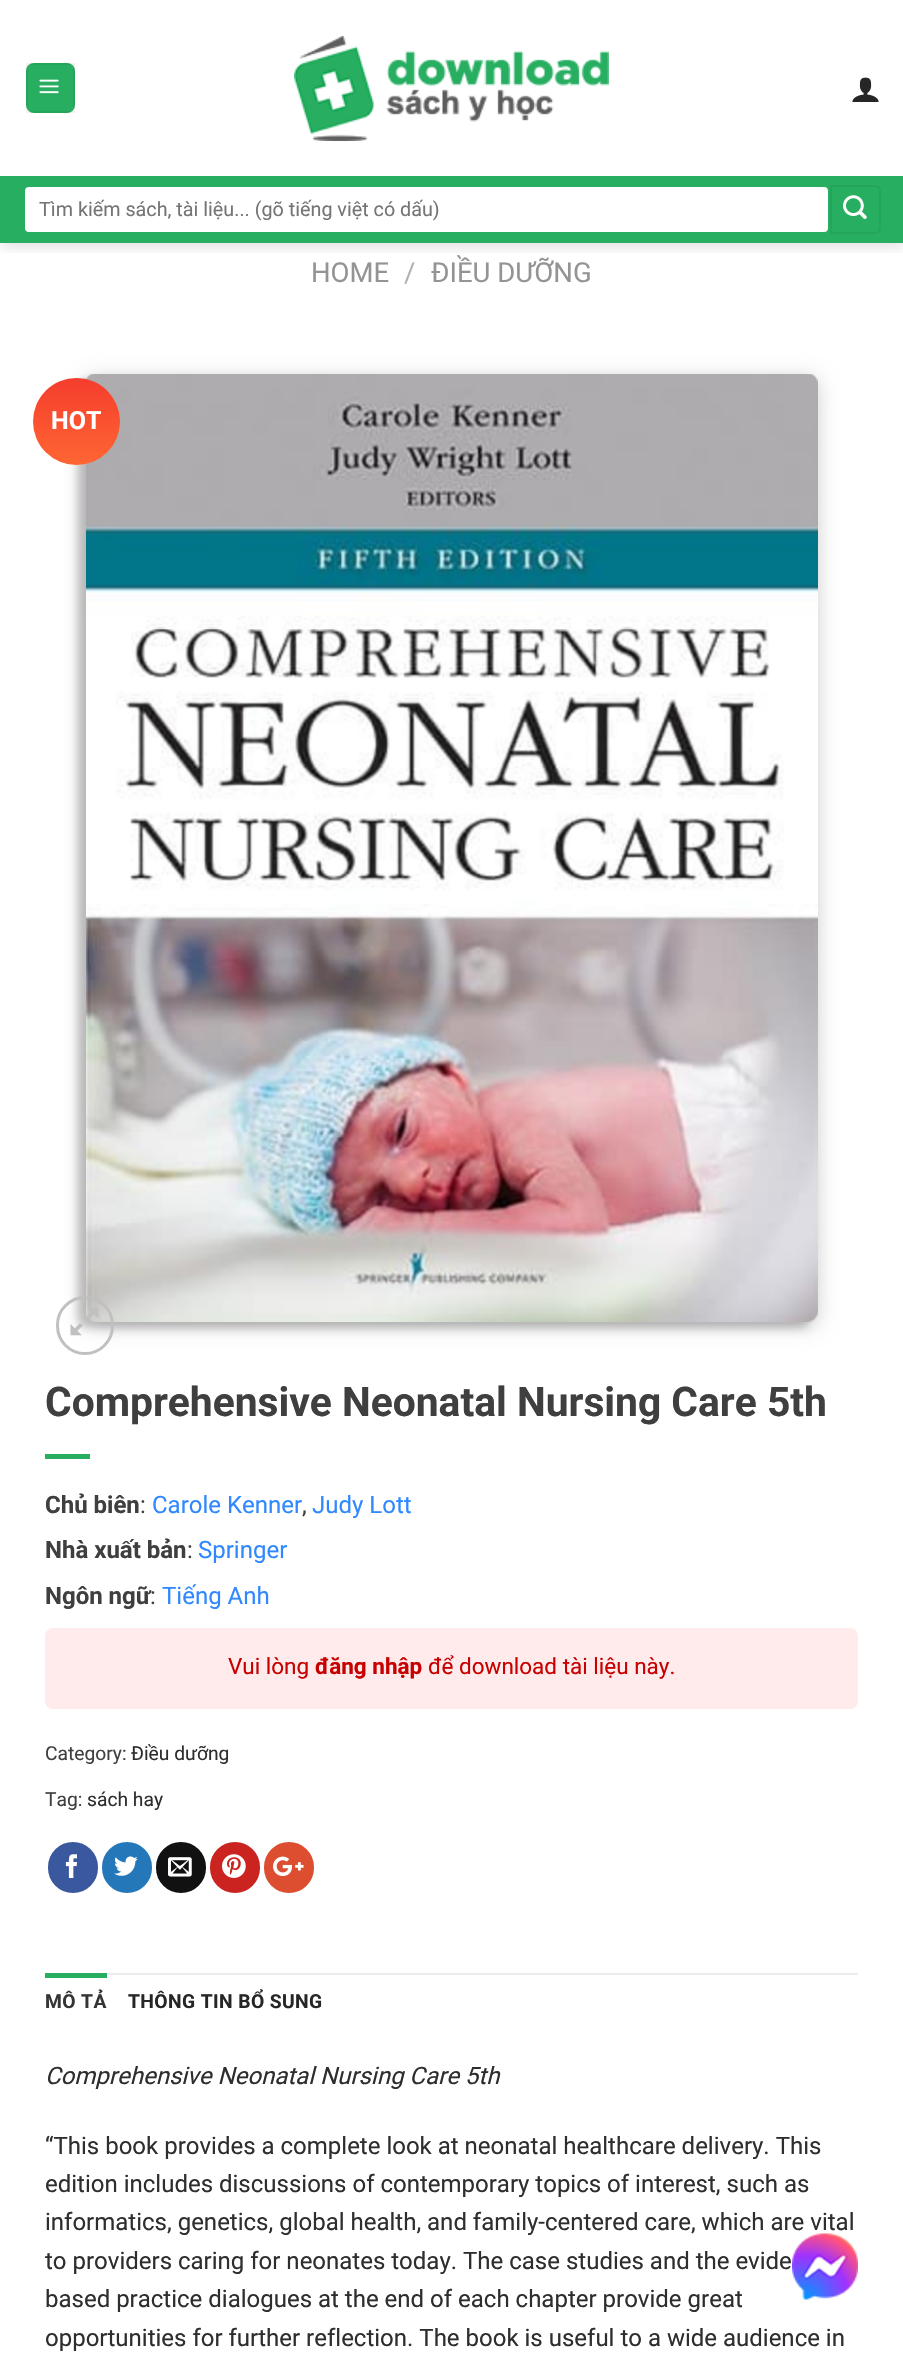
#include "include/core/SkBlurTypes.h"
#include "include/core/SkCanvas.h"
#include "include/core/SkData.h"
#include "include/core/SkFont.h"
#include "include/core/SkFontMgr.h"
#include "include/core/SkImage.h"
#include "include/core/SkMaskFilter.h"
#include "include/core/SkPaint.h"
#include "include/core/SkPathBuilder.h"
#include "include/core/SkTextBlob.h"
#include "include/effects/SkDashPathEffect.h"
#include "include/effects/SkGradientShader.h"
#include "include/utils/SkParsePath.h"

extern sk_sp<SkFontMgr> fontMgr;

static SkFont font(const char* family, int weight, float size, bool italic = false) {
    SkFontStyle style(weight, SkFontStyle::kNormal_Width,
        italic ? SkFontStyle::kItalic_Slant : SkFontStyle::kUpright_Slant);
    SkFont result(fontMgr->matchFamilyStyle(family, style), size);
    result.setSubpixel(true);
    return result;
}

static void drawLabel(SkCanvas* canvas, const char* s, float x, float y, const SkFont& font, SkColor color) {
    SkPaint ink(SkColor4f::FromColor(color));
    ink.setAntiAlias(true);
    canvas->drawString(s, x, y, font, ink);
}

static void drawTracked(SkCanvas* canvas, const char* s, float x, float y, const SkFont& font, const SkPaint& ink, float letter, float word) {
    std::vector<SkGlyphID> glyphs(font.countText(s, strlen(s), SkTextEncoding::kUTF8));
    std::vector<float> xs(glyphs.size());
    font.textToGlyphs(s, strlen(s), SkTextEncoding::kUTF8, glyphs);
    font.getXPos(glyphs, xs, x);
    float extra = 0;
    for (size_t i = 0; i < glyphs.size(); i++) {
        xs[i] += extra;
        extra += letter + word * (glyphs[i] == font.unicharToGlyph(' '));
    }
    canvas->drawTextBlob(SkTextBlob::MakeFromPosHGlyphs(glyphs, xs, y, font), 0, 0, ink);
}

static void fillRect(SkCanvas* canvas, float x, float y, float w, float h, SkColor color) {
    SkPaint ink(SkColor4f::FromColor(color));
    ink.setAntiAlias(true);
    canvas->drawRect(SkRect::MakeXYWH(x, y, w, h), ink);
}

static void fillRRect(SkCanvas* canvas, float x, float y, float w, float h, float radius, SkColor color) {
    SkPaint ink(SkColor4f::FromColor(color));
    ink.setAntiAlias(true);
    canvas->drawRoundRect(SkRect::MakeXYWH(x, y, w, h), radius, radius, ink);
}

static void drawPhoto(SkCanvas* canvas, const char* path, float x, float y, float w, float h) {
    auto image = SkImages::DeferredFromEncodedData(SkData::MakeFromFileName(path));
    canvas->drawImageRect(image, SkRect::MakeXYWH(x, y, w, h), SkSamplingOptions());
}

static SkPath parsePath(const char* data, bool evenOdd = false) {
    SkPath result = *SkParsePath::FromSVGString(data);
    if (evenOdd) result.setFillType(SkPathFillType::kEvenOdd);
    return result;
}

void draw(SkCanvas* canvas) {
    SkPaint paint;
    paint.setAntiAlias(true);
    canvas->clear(0xFFFFFFFF);
    canvas->save();
    canvas->clipRect(SkRect::MakeXYWH(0, 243, 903, 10));
    paint.setColor(0x26000000);
    paint.setMaskFilter(SkMaskFilter::MakeBlur(kNormal_SkBlurStyle, 7.5f));
    canvas->drawRect(SkRect::MakeXYWH(2, 2, 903, 243), paint);
    paint.setMaskFilter(nullptr);
    canvas->restore();
    fillRRect(canvas, 26, 63, 49, 50, 8, 0xFF27AE61);
    paint.setStroke(true);
    paint.setStrokeWidth(2);
    paint.setColor(0x0D000000);
    canvas->drawRect(SkRect::MakeXYWH(27, 64, 47, 48), paint);
    drawPhoto(canvas, "assets/img1.png", 39, 79, 20, 15);
    drawPhoto(canvas, "assets/img2.png", 294, 36, 315, 105);
    drawPhoto(canvas, "assets/img3.png", 852, 77, 27, 25);
    fillRect(canvas, 0, 176, 903, 67, 0xFF27AE61);
    paint.setStroke(false);
    paint.setColor(0xFFFFFFFF);
    canvas->drawRoundRect(SkRect::MakeXYWH(24, 186, 805, 47), 5, 5, paint);
    paint.setStroke(true);
    paint.setColor(0xFF27AE61);
    canvas->drawRoundRect(SkRect::MakeXYWH(24, 186, 805, 47), 5, 5, paint);
    SkFont font1 = font("Roboto", 400, 19.75f);
    drawLabel(canvas, "Tìm kiếm sách, tài liệu... (gõ tiếng việt có dấu)", 39, 216, font1, 0xFF757575);
    paint.setColor(0xFF25A55C);
    canvas->drawPath(parsePath("M831 186H875C878 186 880 188 880 191V228C880 231 878 233 875 233H831Z"), paint);
    drawPhoto(canvas, "assets/img4.png", 843, 195, 24, 24);
    SkFont font2 = font("Roboto", 400, 27.5f);
    drawLabel(canvas, "HOME", 311, 282, font2, 0xFF949494);
    drawLabel(canvas, "/", 404, 282, font2, 0xFFB2B2B2);
    drawLabel(canvas, "ĐIỀU DƯỠNG", 431, 282, font2, 0xFF949494);
    paint.setStroke(false);
    paint.setColor(0x30000000);
    paint.setMaskFilter(SkMaskFilter::MakeBlur(kNormal_SkBlurStyle, 10));
    canvas->drawRoundRect(SkRect::MakeXYWH(86, 378, 732, 948), 9, 9, paint);
    paint.setMaskFilter(nullptr);
    paint.setColor(0x33000000);
    paint.setMaskFilter(SkMaskFilter::MakeBlur(kNormal_SkBlurStyle, 4.5f));
    canvas->drawRoundRect(SkRect::MakeXYWH(77, 380, 732, 948), 9, 9, paint);
    paint.setMaskFilter(nullptr);
    drawPhoto(canvas, "assets/img5.png", 86, 374, 732, 948);
    {
        const SkColor colors[] = {0xFFF53D2D, 0xFFFF6633};
        const float stops[] = {0, 1};
        const SkPoint ends[] = {{77, 378}, {77, 465}};
        paint.setShader(SkGradientShader::MakeLinear(ends, colors, stops, 2, SkTileMode::kClamp));
        paint.setAlpha(255);
    }
    canvas->drawCircle(76.5f, 421.5f, 43.5f, paint);
    SkFont font3 = font("Roboto", 700, 25);
    drawLabel(canvas, "HOT", 51, 429, font3, 0xFFFFFFFF);
    paint.setStroke(true);
    paint.setStrokeWidth(3);
    paint.setShader(nullptr);
    paint.setColor(0xFFC0C0C0);
    canvas->drawRoundRect(SkRect::MakeXYWH(57.5f, 1297.5f, 55, 56), 27.5f, 27.5f, paint);
    drawPhoto(canvas, "assets/img6.png", 70, 1307, 29, 29);
    SkFont font4 = font("Roboto", 700, 40.75f);
    drawLabel(canvas, "Comprehensive Neonatal Nursing Care 5th", 45, 1416, font4, 0xFF3F3F3F);
    fillRect(canvas, 45, 1454, 45, 5, 0xFF27AE61);
    SkFont font5 = font("Roboto", 700, 24);
    drawLabel(canvas, "Chủ biên", 45, 1513, font5, 0xFF3F3F3F);
    SkFont font6 = font("Roboto", 400, 24);
    drawLabel(canvas, ":", 140, 1513, font6, 0xFF3F3F3F);
    drawLabel(canvas, "Carole Kenner", 152, 1513, font6, 0xFF3088FF);
    drawLabel(canvas, ",", 302, 1513, font6, 0xFF3F3F3F);
    drawLabel(canvas, "Judy Lott", 312, 1513, font6, 0xFF3088FF);
    drawLabel(canvas, "Nhà xuất bản", 45, 1558, font5, 0xFF3F3F3F);
    drawLabel(canvas, ":", 187, 1558, font6, 0xFF3F3F3F);
    drawLabel(canvas, "Springer", 198, 1558, font6, 0xFF3088FF);
    drawLabel(canvas, "Ngôn ngữ", 45, 1604, font5, 0xFF3F3F3F);
    drawLabel(canvas, ":", 150, 1604, font6, 0xFF3F3F3F);
    drawLabel(canvas, "Tiếng Anh", 162, 1604, font6, 0xFF3088FF);
    fillRRect(canvas, 45, 1628, 813, 81, 8, 0xFFFFEBEB);
    SkFont font7 = font("Roboto", 400, 22.5f);
    drawLabel(canvas, "Vui lòng", 228, 1674, font7, 0xFFC70000);
    SkFont font8 = font("Roboto", 700, 22.5f);
    drawLabel(canvas, "đăng nhập", 315, 1674, font8, 0xFFC70000);
    drawLabel(canvas, "để download tài liệu này.", 428, 1674, font7, 0xFFC70000);
    SkFont font9 = font("Roboto", 400, 19.25f);
    drawLabel(canvas, "Category:", 45, 1760, font9, 0xFF3F3F3F);
    drawLabel(canvas, "Điều dưỡng", 131, 1760, font9, 0xFF2E2E2E);
    drawLabel(canvas, "Tag:", 45, 1806, font9, 0xFF3F3F3F);
    drawLabel(canvas, "sách hay", 87, 1806, font9, 0xFF2E2E2E);
    paint.setStroke(false);
    paint.setColor(0xFF3A589D);
    canvas->drawRoundRect(SkRect::MakeXYWH(49, 1843, 48, 49), 24, 24, paint);
    paint.setStroke(true);
    paint.setStrokeWidth(2);
    canvas->drawRoundRect(SkRect::MakeXYWH(49, 1843, 48, 49), 24, 24, paint);
    drawPhoto(canvas, "assets/img7.png", 65, 1854, 12, 24);
    paint.setStroke(false);
    paint.setColor(0xFF2478BA);
    canvas->drawRoundRect(SkRect::MakeXYWH(103, 1843, 48, 49), 24, 24, paint);
    paint.setStroke(true);
    canvas->drawRoundRect(SkRect::MakeXYWH(103, 1843, 48, 49), 24, 24, paint);
    drawPhoto(canvas, "assets/img8.png", 114, 1856, 24, 20);
    paint.setStroke(false);
    paint.setColor(0xFF111111);
    canvas->drawRoundRect(SkRect::MakeXYWH(157, 1843, 48, 49), 24, 24, paint);
    paint.setStroke(true);
    canvas->drawRoundRect(SkRect::MakeXYWH(157, 1843, 48, 49), 24, 24, paint);
    drawPhoto(canvas, "assets/img9.png", 168, 1857, 24, 20);
    paint.setStroke(false);
    paint.setColor(0xFFCB2320);
    canvas->drawRoundRect(SkRect::MakeXYWH(211, 1843, 48, 49), 24, 24, paint);
    paint.setStroke(true);
    canvas->drawRoundRect(SkRect::MakeXYWH(211, 1843, 48, 49), 24, 24, paint);
    drawPhoto(canvas, "assets/img10.png", 222, 1854, 24, 24);
    paint.setStroke(false);
    paint.setColor(0xFFDD4E31);
    canvas->drawRoundRect(SkRect::MakeXYWH(265, 1843, 48, 49), 24, 24, paint);
    paint.setStroke(true);
    canvas->drawRoundRect(SkRect::MakeXYWH(265, 1843, 48, 49), 24, 24, paint);
    drawPhoto(canvas, "assets/img11.png", 273, 1856, 31, 20);
    fillRect(canvas, 107, 1973, 751, 2, 0xFFECECEC);
    fillRect(canvas, 45, 1973, 62, 5, 0xFF27AE61);
    SkFont font10 = font("Roboto", 700, 19.25f);
    paint.setStroke(false);
    paint.setColor(0xFF353535);
    drawTracked(canvas, "MÔ TẢ", 45, 2008, font10, paint, 0.4f, 0);
    paint.setColor(0xFF262626);
    drawTracked(canvas, "THÔNG TIN BỔ SUNG", 128, 2008, font10, paint, 0.4f, 0);
    SkFont font11 = font("Roboto", 400, 24, true);
    drawLabel(canvas, "Comprehensive Neonatal Nursing Care 5th", 45, 2084, font11, 0xFF2E2E2E);
    drawLabel(canvas, "“This book provides a complete look at neonatal healthcare delivery. This", 45, 2154, font6, 0xFF2E2E2E);
    drawLabel(canvas, "edition includes discussions of contemporary topics of interest, such as", 45, 2192, font6, 0xFF2E2E2E);
    drawLabel(canvas, "informatics, genetics, global health, and family-centered care, which are vital", 45, 2230, font6, 0xFF2E2E2E);
    drawLabel(canvas, "to providers caring for neonates today. The case studies and the evide", 45, 2269, font6, 0xFF2E2E2E);
    drawLabel(canvas, "based practice dialogues at the end of each chapter provide great", 45, 2307, font6, 0xFF2E2E2E);
    drawLabel(canvas, "opportunities for further reflection. The book is useful to a wide audience in", 45, 2346, font6, 0xFF2E2E2E);
    drawPhoto(canvas, "assets/img12.png", 792, 2233, 66, 67);
}
